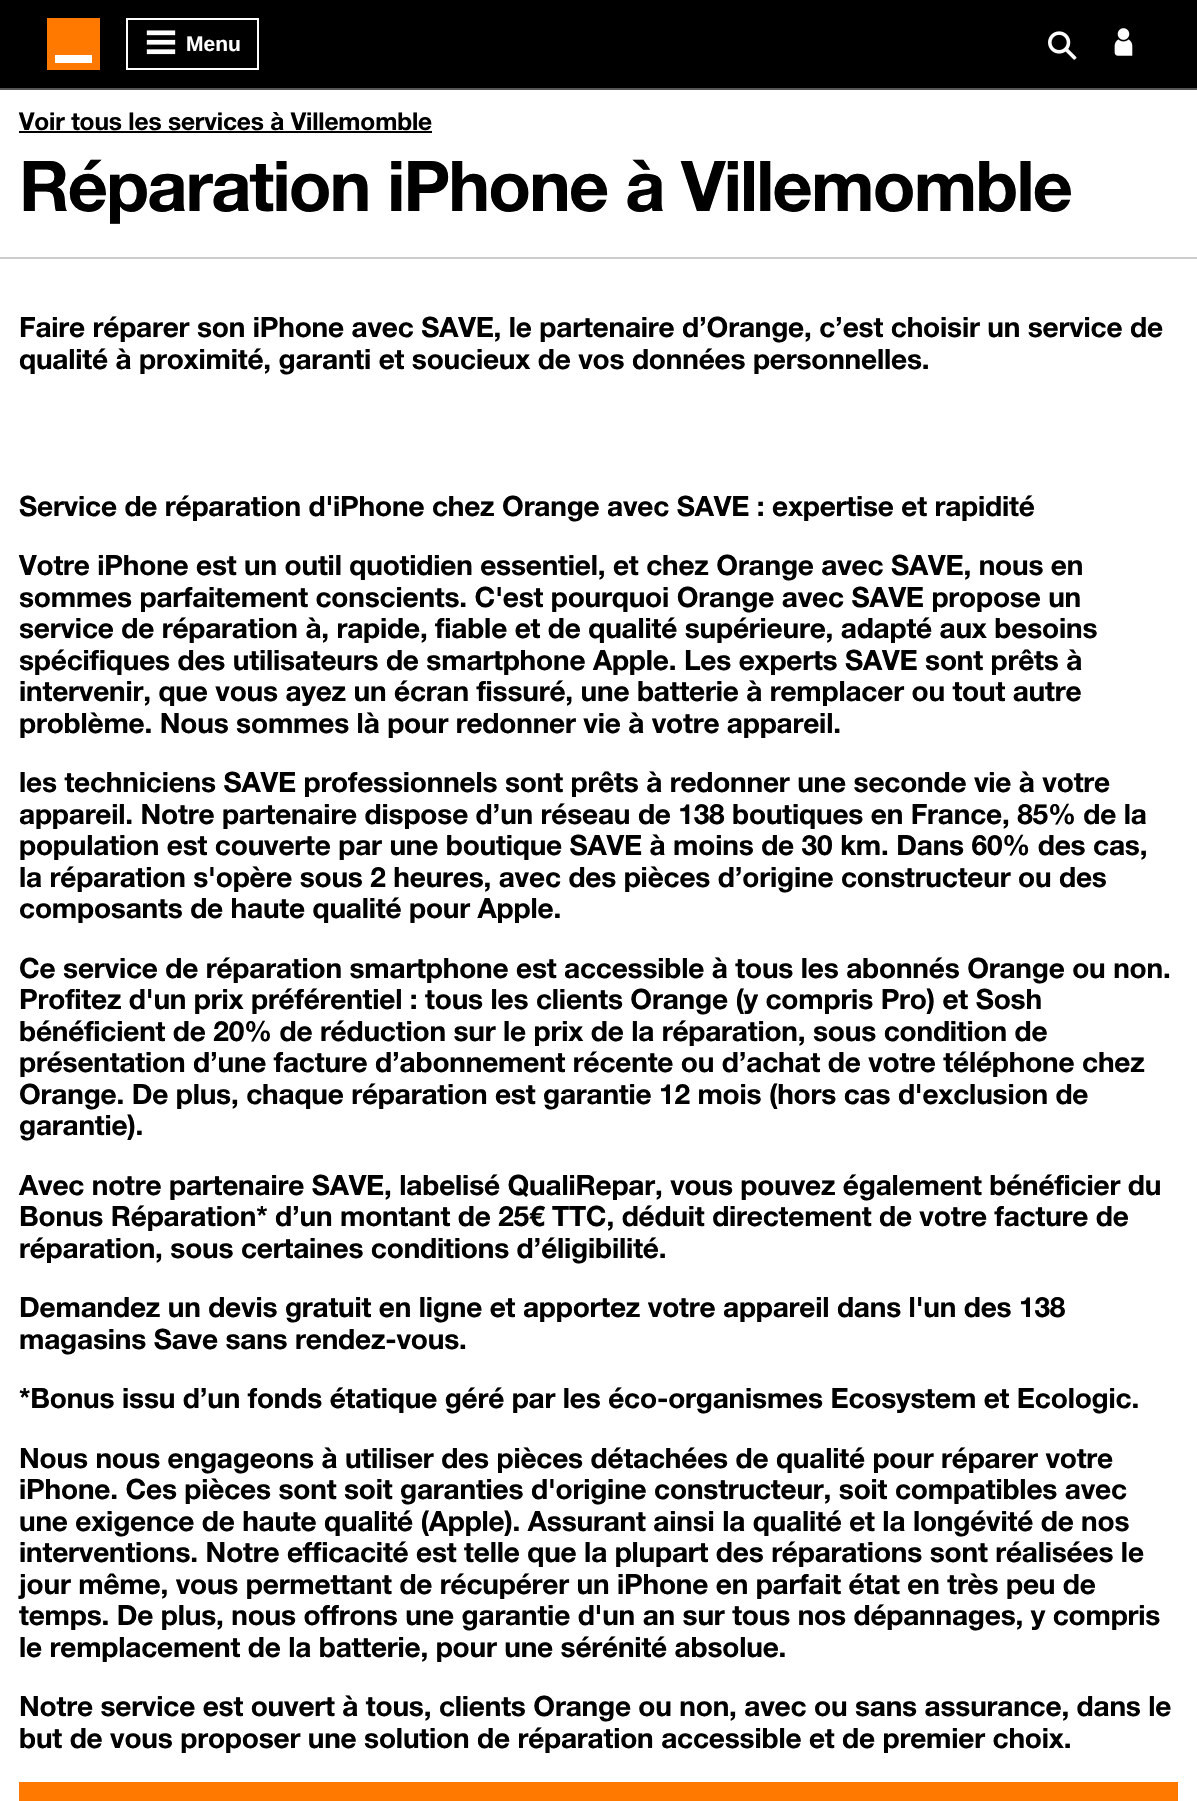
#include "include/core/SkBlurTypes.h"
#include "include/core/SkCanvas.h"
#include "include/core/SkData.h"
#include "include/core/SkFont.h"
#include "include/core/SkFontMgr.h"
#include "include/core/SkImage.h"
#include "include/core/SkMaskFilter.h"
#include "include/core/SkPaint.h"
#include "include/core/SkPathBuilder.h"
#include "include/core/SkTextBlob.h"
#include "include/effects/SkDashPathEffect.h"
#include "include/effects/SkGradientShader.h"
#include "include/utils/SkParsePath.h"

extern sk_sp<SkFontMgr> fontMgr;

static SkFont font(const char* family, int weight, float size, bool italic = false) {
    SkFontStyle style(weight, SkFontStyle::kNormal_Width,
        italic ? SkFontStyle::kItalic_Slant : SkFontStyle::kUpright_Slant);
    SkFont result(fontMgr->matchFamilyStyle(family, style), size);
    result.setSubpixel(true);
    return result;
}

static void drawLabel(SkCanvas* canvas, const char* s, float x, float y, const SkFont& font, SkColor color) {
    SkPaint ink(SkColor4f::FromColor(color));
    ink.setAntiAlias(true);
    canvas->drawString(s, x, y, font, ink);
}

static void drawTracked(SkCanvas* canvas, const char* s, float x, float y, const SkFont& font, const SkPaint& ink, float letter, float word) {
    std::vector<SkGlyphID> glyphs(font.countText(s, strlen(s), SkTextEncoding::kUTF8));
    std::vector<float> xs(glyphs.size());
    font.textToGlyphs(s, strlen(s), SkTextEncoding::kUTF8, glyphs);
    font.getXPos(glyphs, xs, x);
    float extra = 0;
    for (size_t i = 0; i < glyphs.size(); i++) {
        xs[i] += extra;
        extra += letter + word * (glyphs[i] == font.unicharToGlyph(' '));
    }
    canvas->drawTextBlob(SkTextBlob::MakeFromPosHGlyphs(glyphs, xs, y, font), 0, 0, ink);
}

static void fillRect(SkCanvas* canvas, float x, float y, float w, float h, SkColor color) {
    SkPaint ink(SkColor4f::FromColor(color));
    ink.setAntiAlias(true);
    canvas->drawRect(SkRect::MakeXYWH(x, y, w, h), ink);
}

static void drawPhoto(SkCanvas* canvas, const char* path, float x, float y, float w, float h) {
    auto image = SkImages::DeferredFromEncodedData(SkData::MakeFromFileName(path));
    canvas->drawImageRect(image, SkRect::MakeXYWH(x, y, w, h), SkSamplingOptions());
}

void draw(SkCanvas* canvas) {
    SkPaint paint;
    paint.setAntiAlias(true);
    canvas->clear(0xFFFFFFFF);
    fillRect(canvas, 0, 0, 1197, 88, 0xFF000000);
    fillRect(canvas, 47, 18, 53, 52, 0xFFFF7900);
    fillRect(canvas, 55, 55, 37, 8, 0xFFFFFFFF);
    paint.setStroke(true);
    paint.setStrokeWidth(2);
    paint.setColor(0xFFFFFFFF);
    canvas->drawRect(SkRect::MakeXYWH(127, 19, 131, 50), paint);
    drawPhoto(canvas, "assets/img1.png", 146, 30, 30, 25);
    SkFont font1 = font("Liberation Sans", 700, 21);
    drawLabel(canvas, "Menu", 186, 51, font1, 0xFFFFFFFF);
    drawPhoto(canvas, "assets/img2.png", 1048, 31, 29, 29);
    drawPhoto(canvas, "assets/img3.png", 1114, 28, 19, 28);
    fillRect(canvas, 0, 88, 1197, 2, 0xFF555555);
    SkFont font2 = font("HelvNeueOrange", 700, 24.5f);
    paint.setStroke(false);
    paint.setColor(0xFF000000);
    drawTracked(canvas, "Voir tous les services à Villemomble", 19, 130, font2, paint, -0.18f, 0);
    fillRect(canvas, 19, 131, 413, 2, 0xFF000000);
    SkFont font3 = font("HelvNeueOrange", 700, 70);
    drawTracked(canvas, "Réparation iPhone à Villemomble", 19, 211, font3, paint, -1.75f, 0);
    fillRect(canvas, 0, 257, 1197, 2, 0xFFCCCCCC);
    SkFont font4 = font("HelvNeueOrange", 700, 28);
    drawTracked(canvas, "Faire réparer son iPhone avec SAVE, le partenaire d’Orange, c’est choisir un service de", 19, 337, font4, paint, -0.18f, 0);
    drawTracked(canvas, "qualité à proximité, garanti et soucieux de vos données personnelles.", 19, 369, font4, paint, -0.18f, 0);
    drawTracked(canvas, "Service de réparation d'iPhone chez Orange avec SAVE : expertise et rapidité", 19, 516, font4, paint, -0.18f, 0);
    drawTracked(canvas, "Votre iPhone est un outil quotidien essentiel, et chez Orange avec SAVE, nous en", 19, 575, font4, paint, -0.18f, 0);
    drawTracked(canvas, "sommes parfaitement conscients. C'est pourquoi Orange avec SAVE propose un", 19, 607, font4, paint, -0.18f, 0);
    drawTracked(canvas, "service de réparation à, rapide, fiable et de qualité supérieure, adapté aux besoins", 19, 638, font4, paint, -0.18f, 0);
    drawTracked(canvas, "spécifiques des utilisateurs de smartphone Apple. Les experts SAVE sont prêts à", 19, 670, font4, paint, -0.18f, 0);
    drawTracked(canvas, "intervenir, que vous ayez un écran fissuré, une batterie à remplacer ou tout autre", 19, 701, font4, paint, -0.18f, 0);
    drawTracked(canvas, "problème. Nous sommes là pour redonner vie à votre appareil.", 19, 733, font4, paint, -0.18f, 0);
    drawTracked(canvas, "les techniciens SAVE professionnels sont prêts à redonner une seconde vie à votre", 19, 792, font4, paint, -0.18f, 0);
    drawTracked(canvas, "appareil. Notre partenaire dispose d’un réseau de 138 boutiques en France, 85% de la", 19, 824, font4, paint, -0.18f, 0);
    drawTracked(canvas, "population est couverte par une boutique SAVE à moins de 30 km. Dans 60% des cas,", 19, 855, font4, paint, -0.18f, 0);
    drawTracked(canvas, "la réparation s'opère sous 2 heures, avec des pièces d’origine constructeur ou des", 19, 887, font4, paint, -0.18f, 0);
    drawTracked(canvas, "composants de haute qualité pour Apple.", 19, 918, font4, paint, -0.18f, 0);
    drawTracked(canvas, "Ce service de réparation smartphone est accessible à tous les abonnés Orange ou non.", 19, 978, font4, paint, -0.18f, 0);
    drawTracked(canvas, "Profitez d'un prix préférentiel : tous les clients Orange (y compris Pro) et Sosh", 19, 1009, font4, paint, -0.18f, 0);
    drawTracked(canvas, "bénéficient de 20% de réduction sur le prix de la réparation, sous condition de", 19, 1041, font4, paint, -0.18f, 0);
    drawTracked(canvas, "présentation d’une facture d’abonnement récente ou d’achat de votre téléphone chez", 19, 1072, font4, paint, -0.18f, 0);
    drawTracked(canvas, "Orange. De plus, chaque réparation est garantie 12 mois (hors cas d'exclusion de", 19, 1104, font4, paint, -0.18f, 0);
    drawTracked(canvas, "garantie).", 19, 1135, font4, paint, -0.18f, 0);
    drawTracked(canvas, "Avec notre partenaire SAVE, labelisé QualiRepar, vous pouvez également bénéficier du", 19, 1195, font4, paint, -0.18f, 0);
    drawTracked(canvas, "Bonus Réparation* d’un montant de 25€ TTC, déduit directement de votre facture de", 19, 1226, font4, paint, -0.18f, 0);
    drawTracked(canvas, "réparation, sous certaines conditions d’éligibilité.", 19, 1258, font4, paint, -0.18f, 0);
    drawTracked(canvas, "Demandez un devis gratuit en ligne et apportez votre appareil dans l'un des 138", 19, 1317, font4, paint, -0.18f, 0);
    drawTracked(canvas, "magasins Save sans rendez-vous.", 19, 1349, font4, paint, -0.18f, 0);
    drawTracked(canvas, "*Bonus issu d’un fonds étatique géré par les éco-organismes Ecosystem et Ecologic.", 19, 1408, font4, paint, -0.18f, 0);
    drawTracked(canvas, "Nous nous engageons à utiliser des pièces détachées de qualité pour réparer votre", 19, 1468, font4, paint, -0.18f, 0);
    drawTracked(canvas, "iPhone. Ces pièces sont soit garanties d'origine constructeur, soit compatibles avec", 19, 1499, font4, paint, -0.18f, 0);
    drawTracked(canvas, "une exigence de haute qualité (Apple). Assurant ainsi la qualité et la longévité de nos", 19, 1531, font4, paint, -0.18f, 0);
    drawTracked(canvas, "interventions. Notre efficacité est telle que la plupart des réparations sont réalisées le", 19, 1562, font4, paint, -0.18f, 0);
    drawTracked(canvas, "jour même, vous permettant de récupérer un iPhone en parfait état en très peu de", 19, 1594, font4, paint, -0.18f, 0);
    drawTracked(canvas, "temps. De plus, nous offrons une garantie d'un an sur tous nos dépannages, y compris", 19, 1625, font4, paint, -0.18f, 0);
    drawTracked(canvas, "le remplacement de la batterie, pour une sérénité absolue.", 19, 1657, font4, paint, -0.18f, 0);
    drawTracked(canvas, "Notre service est ouvert à tous, clients Orange ou non, avec ou sans assurance, dans le", 19, 1716, font4, paint, -0.18f, 0);
    drawTracked(canvas, "but de vous proposer une solution de réparation accessible et de premier choix.", 19, 1748, font4, paint, -0.18f, 0);
    fillRect(canvas, 19, 1782, 1159, 19, 0xFFFF7900);
}
